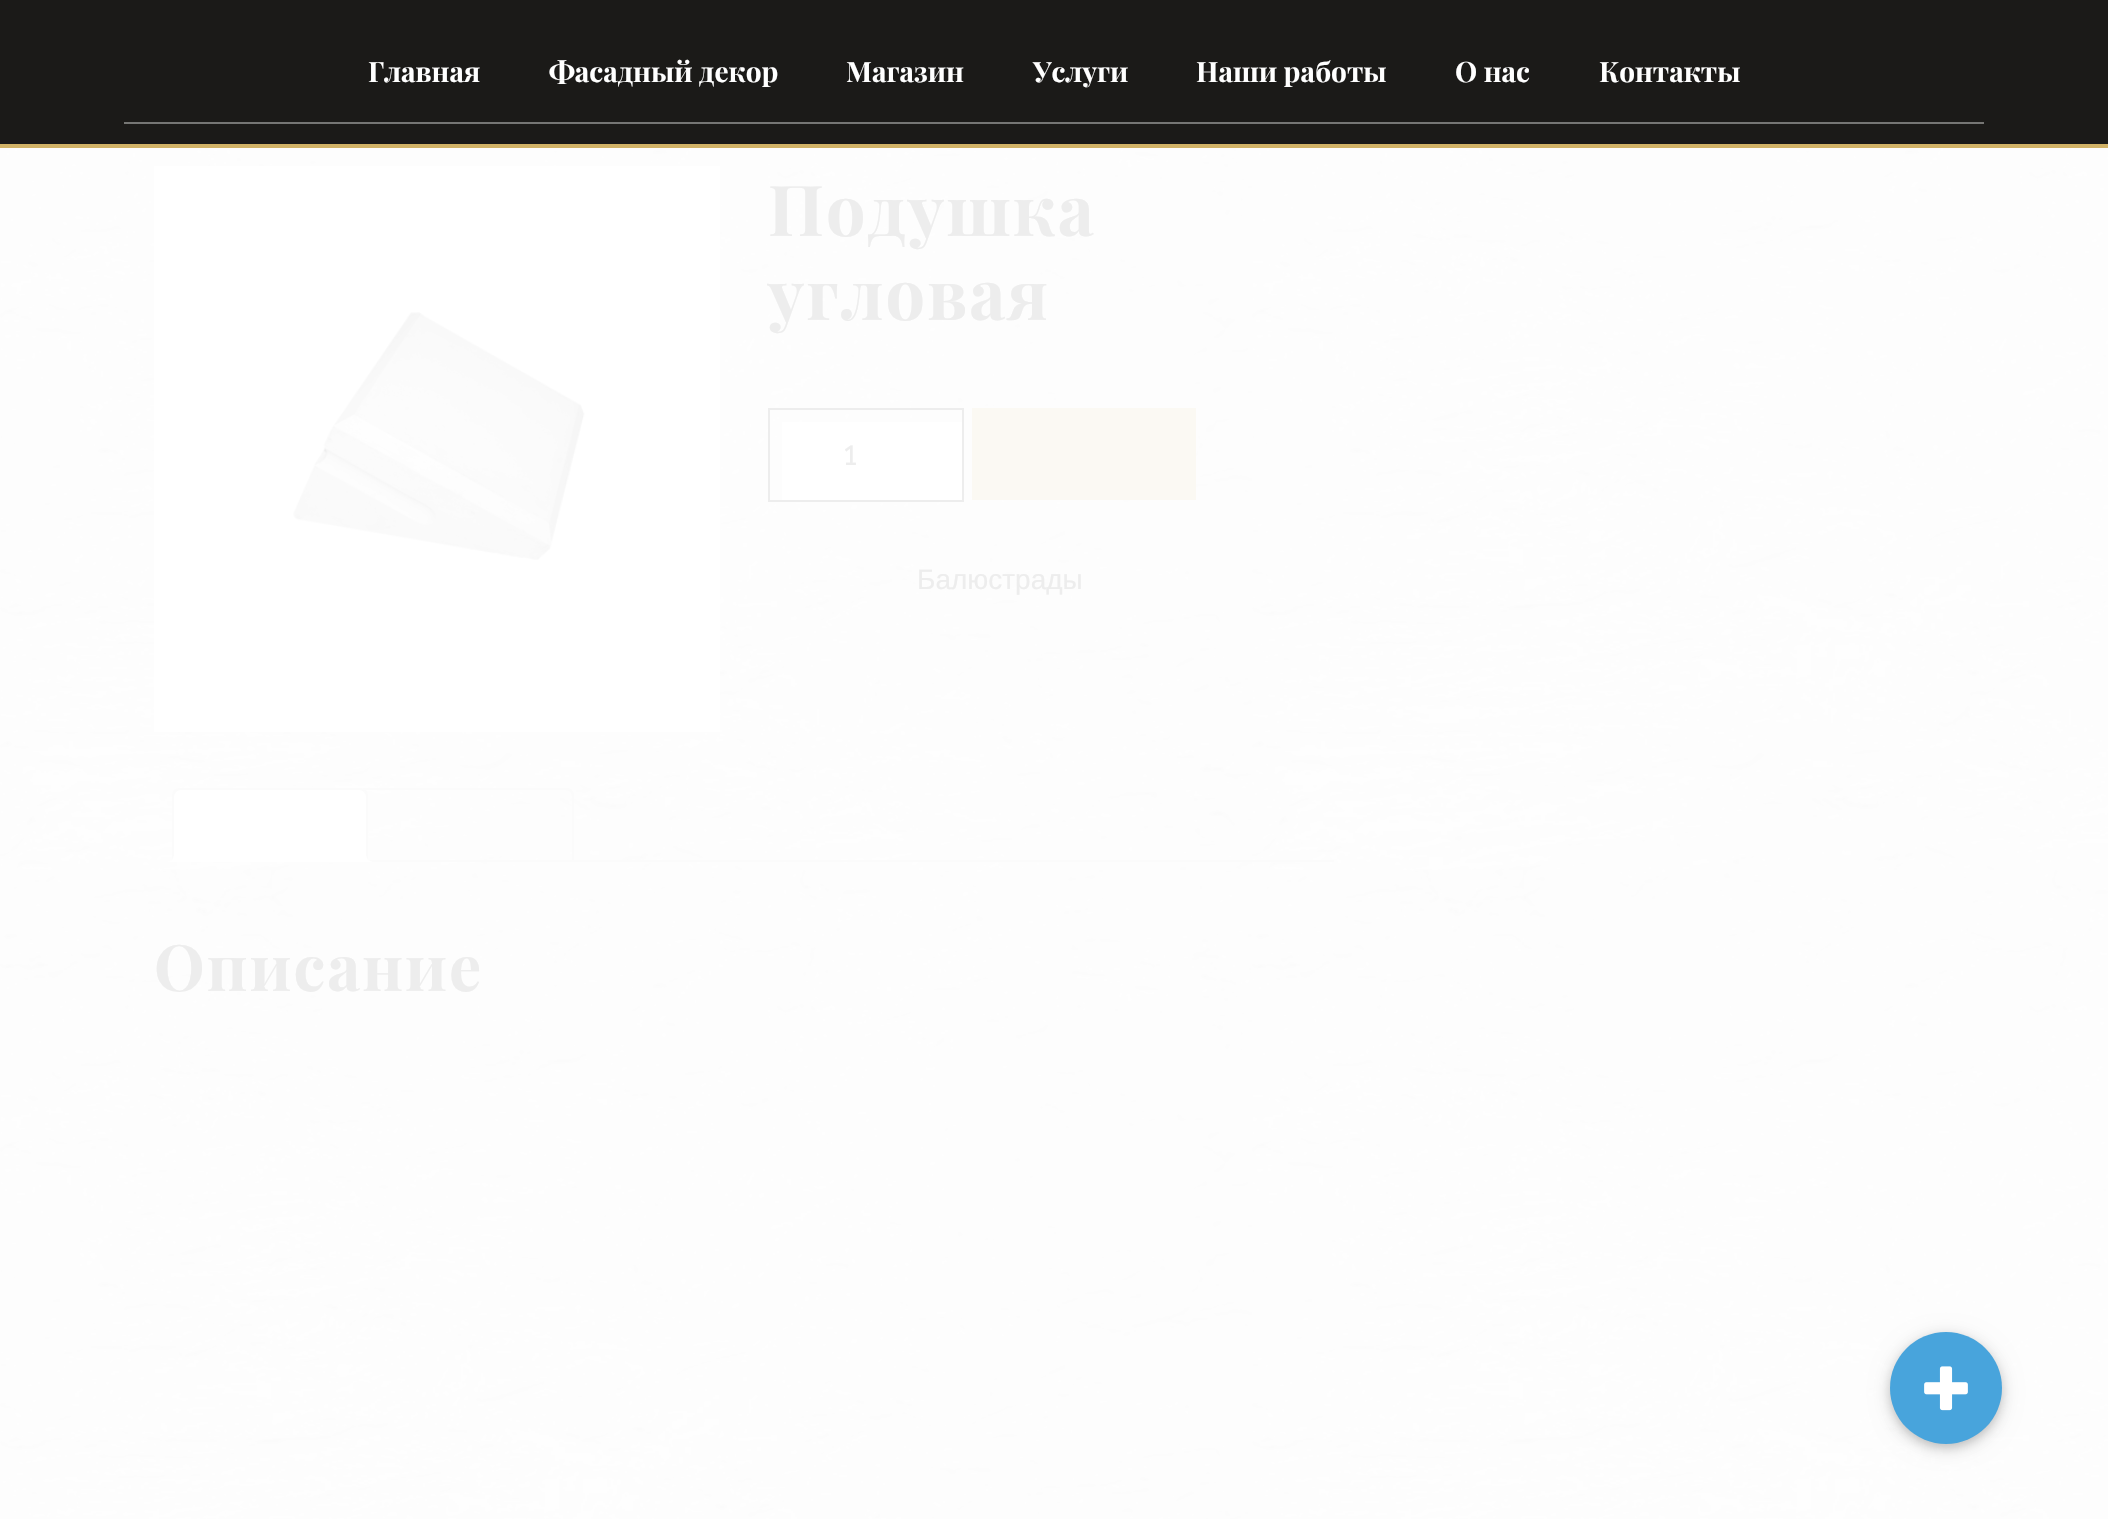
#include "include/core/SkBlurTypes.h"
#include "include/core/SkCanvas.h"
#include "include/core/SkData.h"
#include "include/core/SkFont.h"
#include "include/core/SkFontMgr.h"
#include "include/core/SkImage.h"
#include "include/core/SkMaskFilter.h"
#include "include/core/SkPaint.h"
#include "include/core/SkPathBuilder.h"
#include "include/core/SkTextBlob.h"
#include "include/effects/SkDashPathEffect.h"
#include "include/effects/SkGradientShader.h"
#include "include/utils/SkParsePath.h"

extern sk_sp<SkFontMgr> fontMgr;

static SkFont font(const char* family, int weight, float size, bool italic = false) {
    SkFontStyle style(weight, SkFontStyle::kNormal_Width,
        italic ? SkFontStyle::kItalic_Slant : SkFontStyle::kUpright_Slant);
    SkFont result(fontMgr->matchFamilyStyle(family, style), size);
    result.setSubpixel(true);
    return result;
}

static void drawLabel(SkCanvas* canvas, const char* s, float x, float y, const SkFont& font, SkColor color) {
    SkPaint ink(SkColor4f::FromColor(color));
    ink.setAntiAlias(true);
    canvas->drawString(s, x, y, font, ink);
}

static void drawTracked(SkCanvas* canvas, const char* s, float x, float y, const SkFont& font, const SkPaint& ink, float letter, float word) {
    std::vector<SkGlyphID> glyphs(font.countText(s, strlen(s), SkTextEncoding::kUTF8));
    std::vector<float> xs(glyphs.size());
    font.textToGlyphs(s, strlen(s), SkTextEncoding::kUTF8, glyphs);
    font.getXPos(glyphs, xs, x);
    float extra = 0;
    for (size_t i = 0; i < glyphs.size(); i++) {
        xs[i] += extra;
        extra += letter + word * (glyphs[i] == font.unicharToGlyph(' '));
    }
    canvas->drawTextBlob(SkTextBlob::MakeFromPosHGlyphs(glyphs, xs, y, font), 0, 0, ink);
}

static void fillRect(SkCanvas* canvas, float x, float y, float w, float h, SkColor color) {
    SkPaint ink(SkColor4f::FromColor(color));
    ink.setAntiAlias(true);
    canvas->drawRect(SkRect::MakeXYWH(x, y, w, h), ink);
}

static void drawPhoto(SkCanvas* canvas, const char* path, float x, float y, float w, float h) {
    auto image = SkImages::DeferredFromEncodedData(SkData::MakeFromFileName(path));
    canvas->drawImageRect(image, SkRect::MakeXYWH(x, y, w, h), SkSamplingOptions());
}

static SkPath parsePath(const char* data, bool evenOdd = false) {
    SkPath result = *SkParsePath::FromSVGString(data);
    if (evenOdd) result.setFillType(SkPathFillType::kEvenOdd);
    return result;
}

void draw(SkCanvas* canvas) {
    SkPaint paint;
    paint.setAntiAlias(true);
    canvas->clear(0xFFFFFFFF);
    drawPhoto(canvas, "assets/img1.png", 0, 148, 2108, 1371);
    fillRect(canvas, 0, 0, 2108, 144, 0xFF1B1A18);
    fillRect(canvas, 0, 144, 2108, 4, 0xFFD1B266);
    fillRect(canvas, 124, 122, 1860, 2, 0xFF767674);
    SkFont font1 = font("Playfair Display", 700, 28);
    drawLabel(canvas, "Главная", 368, 82, font1, 0xFFFFFFFF);
    drawLabel(canvas, "Фасадный декор", 549, 82, font1, 0xFFFFFFFF);
    drawLabel(canvas, "Магазин", 846, 82, font1, 0xFFFFFFFF);
    drawLabel(canvas, "Услуги", 1033, 82, font1, 0xFFFFFFFF);
    drawLabel(canvas, "Наши работы", 1196, 82, font1, 0xFFFFFFFF);
    drawLabel(canvas, "О нас", 1455, 82, font1, 0xFFFFFFFF);
    drawLabel(canvas, "Контакты", 1599, 82, font1, 0xFFFFFFFF);
    drawPhoto(canvas, "assets/img2.png", 154, 166, 566, 566);
    SkFont font2 = font("Playfair Display", 700, 70);
    paint.setColor(0xFFEDEDED);
    drawTracked(canvas, "Подушка", 768, 236, font2, paint, 2, 0);
    drawTracked(canvas, "угловая", 768, 320, font2, paint, 2, 0);
    fillRect(canvas, 782, 422, 180, 78, 0xFFFFFFFF);
    paint.setStroke(true);
    paint.setStrokeWidth(2);
    canvas->drawRect(SkRect::MakeXYWH(769, 409, 194, 92), paint);
    SkFont font3 = font("ABeeZee", 400, 28);
    drawLabel(canvas, "1", 842, 465, font3, 0xFFEDEDED);
    fillRect(canvas, 972, 408, 224, 92, 0xFFFBF9F3);
    SkFont font4 = font("Liberation Sans", 400, 28);
    drawLabel(canvas, "Балюстрады", 917, 589, font4, 0xFFEDEDED);
    paint.setColor(0xFFFBFBFB);
    canvas->drawPath(parsePath("M366 789H566C570 789 573 792 573 796V861H359V796C359 792 362 789 366 789Z"), paint);
    fillRect(canvas, 177, 860, 1157, 2, 0xFFFBFBFB);
    paint.setStroke(false);
    paint.setColor(0xFFFFFFFF);
    canvas->drawPath(parsePath("M180 788H360C364.5 788 368 791.5 368 796V862H172V796C172 791.5 175.5 788 180 788Z"), paint);
    paint.setColor(0xFFFBFBFB);
    canvas->drawPath(parsePath("M180 788C178 788 176 789 174 790L176 792C177 791 178 790 180 790H360C362 790 363 791 364 792L366 790C364 789 362 788 360 788Z"), paint);
    canvas->drawPath(parsePath("M368 862V796C368 794 367 792 366 790L364 792C365 793 366 794 366 796V860Z"), paint);
    canvas->drawPath(parsePath("M172 862L174 860V796C174 794 175 793 176 792L174 790C173 792 172 794 172 796Z"), paint);
    canvas->save();
    canvas->clipRect(SkRect::MakeXYWH(154, 788, 1180, 74));
    paint.setColor(0xFFFFFFFF);
    canvas->drawPath(parsePath("M168 861.5V866C175 866 178 863 178 856H173.5C173 859 171 861 168 861.5Z"), paint);
    canvas->drawPath(parsePath("M362 856C362 863 365 866 372 866V861.5C369 861 367 859 366.5 856Z"), paint);
    canvas->restore();
    SkFont font5 = font("Playfair Display", 700, 64);
    paint.setColor(0xFFEDEDED);
    drawTracked(canvas, "Описание", 154, 991, font5, paint, 2, 0);
    paint.setColor(0x1F000000);
    paint.setMaskFilter(SkMaskFilter::MakeBlur(kNormal_SkBlurStyle, 10));
    canvas->drawRoundRect(SkRect::MakeXYWH(1890, 1336, 112, 112), 56, 56, paint);
    paint.setMaskFilter(nullptr);
    paint.setColor(0x29000000);
    paint.setMaskFilter(SkMaskFilter::MakeBlur(kNormal_SkBlurStyle, 5));
    canvas->drawRoundRect(SkRect::MakeXYWH(1890, 1336, 112, 112), 56, 56, paint);
    paint.setMaskFilter(nullptr);
    paint.setColor(0xFF48A4DC);
    canvas->drawCircle(1946, 1388, 56, paint);
    drawPhoto(canvas, "assets/img3.png", 1924, 1366, 44, 45);
}
